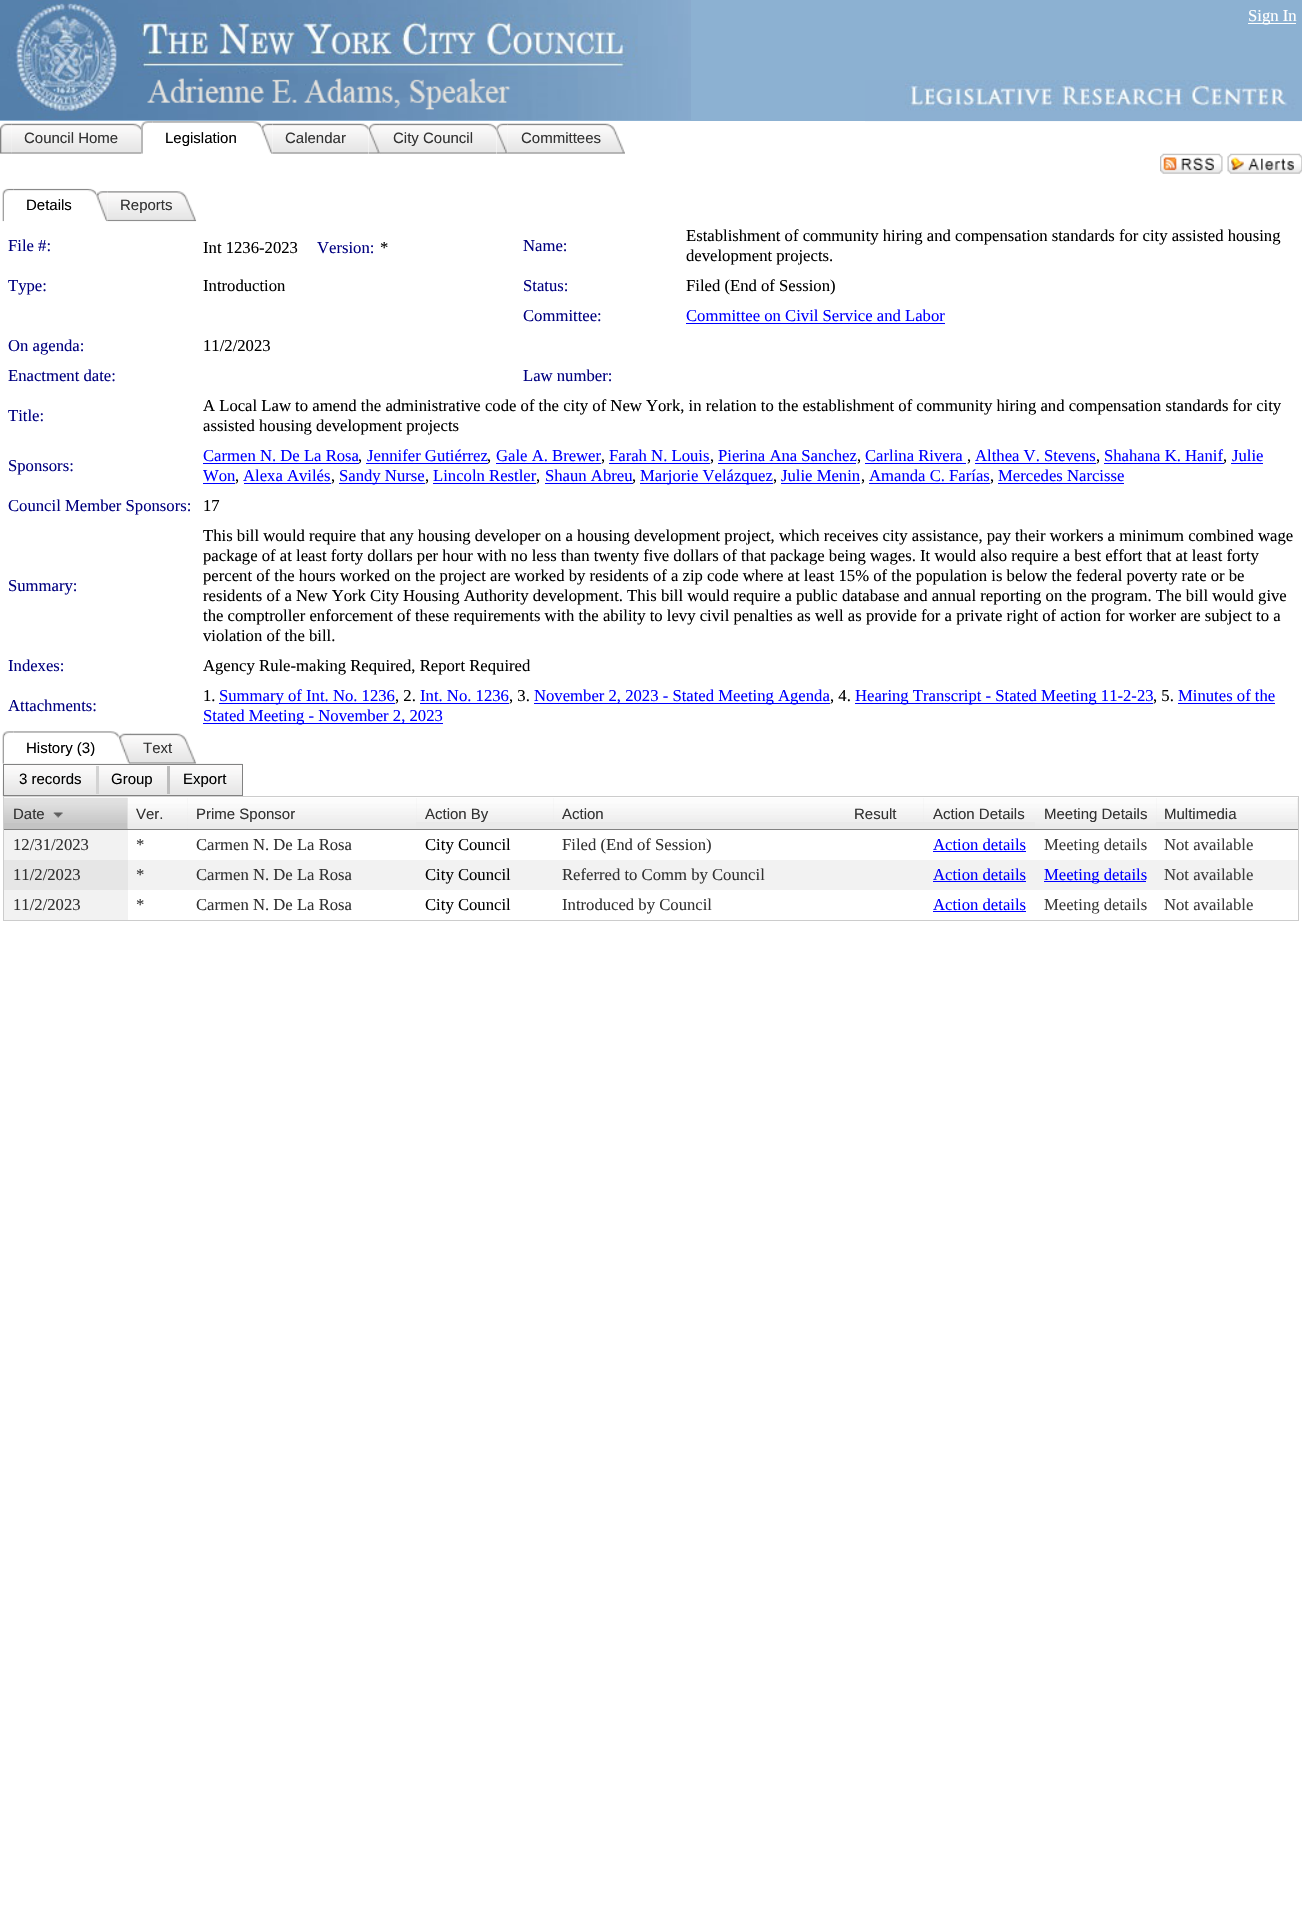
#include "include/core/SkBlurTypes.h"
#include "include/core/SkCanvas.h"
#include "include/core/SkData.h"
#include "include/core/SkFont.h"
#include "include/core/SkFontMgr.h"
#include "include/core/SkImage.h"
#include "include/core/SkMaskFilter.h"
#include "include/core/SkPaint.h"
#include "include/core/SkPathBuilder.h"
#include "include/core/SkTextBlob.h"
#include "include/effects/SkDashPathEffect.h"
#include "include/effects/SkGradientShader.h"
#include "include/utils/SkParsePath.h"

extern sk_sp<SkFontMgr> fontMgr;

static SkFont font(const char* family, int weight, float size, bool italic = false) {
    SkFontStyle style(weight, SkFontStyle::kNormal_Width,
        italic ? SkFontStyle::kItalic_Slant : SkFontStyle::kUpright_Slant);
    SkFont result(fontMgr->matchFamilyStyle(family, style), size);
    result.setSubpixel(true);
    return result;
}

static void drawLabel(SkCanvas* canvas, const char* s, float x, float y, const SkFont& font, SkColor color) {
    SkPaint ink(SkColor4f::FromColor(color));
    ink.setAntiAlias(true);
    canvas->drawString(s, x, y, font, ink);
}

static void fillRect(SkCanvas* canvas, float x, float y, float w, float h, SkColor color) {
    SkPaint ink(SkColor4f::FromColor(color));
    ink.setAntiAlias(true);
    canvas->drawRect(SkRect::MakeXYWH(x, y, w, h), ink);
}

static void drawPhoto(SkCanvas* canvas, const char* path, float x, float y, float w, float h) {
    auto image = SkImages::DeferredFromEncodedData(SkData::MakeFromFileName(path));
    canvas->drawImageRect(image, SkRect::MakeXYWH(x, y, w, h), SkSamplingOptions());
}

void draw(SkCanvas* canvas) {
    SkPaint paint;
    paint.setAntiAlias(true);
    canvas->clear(0xFFFFFFFF);
    fillRect(canvas, 0, 0, 1302, 121, 0xFF8CB1D2);
    drawPhoto(canvas, "assets/img1.png", 0, 0, 691, 120);
    drawPhoto(canvas, "assets/img2.png", 865, 80, 437, 42);
    fillRect(canvas, 1248, 23, 48, 1, 0xFFFFFFFF);
    SkFont font1 = font("Liberation Serif", 400, 16.67f);
    drawLabel(canvas, "Sign In", 1248, 21, font1, 0xFFFFFFFF);
    drawPhoto(canvas, "assets/img3.png", 0, 123, 12, 31);
    drawPhoto(canvas, "assets/img4.png", 11, 123, 131, 31);
    SkFont font2 = font("Liberation Sans", 400, 15);
    drawLabel(canvas, "Council Home", 24, 143, font2, 0xFF333333);
    drawPhoto(canvas, "assets/img5.png", 141, 121, 12, 33);
    drawPhoto(canvas, "assets/img6.png", 152, 121, 110, 7);
    drawLabel(canvas, "Legislation", 165, 143, font2, 0xFF000000);
    drawPhoto(canvas, "assets/img7.png", 261, 123, 12, 31);
    drawPhoto(canvas, "assets/img8.png", 272, 123, 97, 31);
    drawLabel(canvas, "Calendar", 285, 143, font2, 0xFF333333);
    drawPhoto(canvas, "assets/img9.png", 368, 123, 13, 31);
    drawPhoto(canvas, "assets/img10.png", 380, 123, 117, 31);
    drawLabel(canvas, "City Council", 393, 143, font2, 0xFF333333);
    drawPhoto(canvas, "assets/img11.png", 496, 123, 12, 31);
    drawPhoto(canvas, "assets/img12.png", 507, 123, 118, 31);
    drawLabel(canvas, "Committees", 521, 143, font2, 0xFF333333);
    drawPhoto(canvas, "assets/img13.png", 1160, 153, 63, 21);
    drawPhoto(canvas, "assets/img14.png", 1227, 153, 75, 21);
    drawPhoto(canvas, "assets/img15.png", 2, 188, 12, 34);
    drawPhoto(canvas, "assets/img16.png", 13, 188, 84, 8);
    drawLabel(canvas, "Details", 26, 210, font2, 0xFF000000);
    drawPhoto(canvas, "assets/img17.png", 96, 191, 12, 31);
    drawPhoto(canvas, "assets/img18.png", 107, 191, 90, 31);
    drawLabel(canvas, "Reports", 120, 210, font2, 0xFF333333);
    drawLabel(canvas, "File #:", 8, 251, font1, 0xFF000080);
    drawLabel(canvas, "Int 1236-2023", 203, 253, font1, 0xFF000000);
    drawLabel(canvas, "Version:", 317, 253, font1, 0xFF000080);
    drawLabel(canvas, "*", 380, 253, font1, 0xFF000000);
    drawLabel(canvas, "Name:", 523, 251, font1, 0xFF000080);
    drawLabel(canvas, "Establishment of community hiring and compensation standards for city assisted housing", 686, 241, font1, 0xFF000000);
    drawLabel(canvas, "development projects.", 686, 261, font1, 0xFF000000);
    drawLabel(canvas, "Type:", 8, 291, font1, 0xFF000080);
    drawLabel(canvas, "Introduction", 203, 291, font1, 0xFF000000);
    drawLabel(canvas, "Status:", 523, 291, font1, 0xFF000080);
    drawLabel(canvas, "Filed (End of Session)", 686, 291, font1, 0xFF000000);
    drawLabel(canvas, "Committee:", 523, 321, font1, 0xFF000080);
    drawLabel(canvas, "Committee on Civil Service and Labor", 686, 321, font1, 0xFF0000FF);
    fillRect(canvas, 686, 323, 259, 1, 0xFF0000FF);
    drawLabel(canvas, "On agenda:", 8, 351, font1, 0xFF000080);
    drawLabel(canvas, "11/2/2023", 203, 351, font1, 0xFF000000);
    drawLabel(canvas, "Enactment date:", 8, 381, font1, 0xFF000080);
    drawLabel(canvas, "Law number:", 523, 381, font1, 0xFF000080);
    drawLabel(canvas, "Title:", 8, 421, font1, 0xFF000080);
    drawLabel(canvas, "A Local Law to amend the administrative code of the city of New York, in relation to the establishment of community hiring and compensation standards for city", 203, 411, font1, 0xFF000000);
    drawLabel(canvas, "assisted housing development projects", 203, 431, font1, 0xFF000000);
    drawLabel(canvas, "Sponsors:", 8, 471, font1, 0xFF000080);
    drawLabel(canvas, "Carmen N. De La Rosa", 203, 461, font1, 0xFF0000FF);
    drawLabel(canvas, ",", 358, 461, font1, 0xFF000000);
    fillRect(canvas, 203, 463, 156, 1, 0xFF0000FF);
    drawLabel(canvas, "Jennifer Gutiérrez", 367, 461, font1, 0xFF0000FF);
    drawLabel(canvas, ",", 487, 461, font1, 0xFF000000);
    fillRect(canvas, 366, 463, 122, 1, 0xFF0000FF);
    drawLabel(canvas, "Gale A. Brewer", 496, 461, font1, 0xFF0000FF);
    drawLabel(canvas, ",", 601, 461, font1, 0xFF000000);
    fillRect(canvas, 496, 463, 105, 1, 0xFF0000FF);
    drawLabel(canvas, "Farah N. Louis", 609, 461, font1, 0xFF0000FF);
    drawLabel(canvas, ",", 710, 461, font1, 0xFF000000);
    fillRect(canvas, 609, 463, 101, 1, 0xFF0000FF);
    drawLabel(canvas, "Pierina Ana Sanchez", 718, 461, font1, 0xFF0000FF);
    drawLabel(canvas, ",", 857, 461, font1, 0xFF000000);
    fillRect(canvas, 718, 463, 138, 1, 0xFF0000FF);
    drawLabel(canvas, "Carlina Rivera", 865, 461, font1, 0xFF0000FF);
    drawLabel(canvas, ",", 967, 461, font1, 0xFF000000);
    fillRect(canvas, 865, 463, 101, 1, 0xFF0000FF);
    drawLabel(canvas, "Althea V. Stevens", 975, 461, font1, 0xFF0000FF);
    drawLabel(canvas, ",", 1096, 461, font1, 0xFF000000);
    fillRect(canvas, 975, 463, 121, 1, 0xFF0000FF);
    drawLabel(canvas, "Shahana K. Hanif", 1104, 461, font1, 0xFF0000FF);
    fillRect(canvas, 1104, 463, 120, 1, 0xFF0000FF);
    drawLabel(canvas, ",", 1223, 461, font1, 0xFF000000);
    fillRect(canvas, 1231, 463, 32, 1, 0xFF0000FF);
    drawLabel(canvas, "Julie", 1232, 461, font1, 0xFF0000FF);
    drawLabel(canvas, "Won", 203, 481, font1, 0xFF0000FF);
    drawLabel(canvas, ",", 235, 481, font1, 0xFF000000);
    fillRect(canvas, 203, 483, 32, 1, 0xFF0000FF);
    drawLabel(canvas, "Alexa Avilés", 243, 481, font1, 0xFF0000FF);
    drawLabel(canvas, ",", 331, 481, font1, 0xFF000000);
    fillRect(canvas, 244, 483, 87, 1, 0xFF0000FF);
    fillRect(canvas, 339, 483, 86, 1, 0xFF0000FF);
    drawLabel(canvas, "Sandy Nurse", 339, 481, font1, 0xFF0000FF);
    drawLabel(canvas, ",", 425, 481, font1, 0xFF000000);
    drawLabel(canvas, "Lincoln Restler", 433, 481, font1, 0xFF0000FF);
    drawLabel(canvas, ",", 536, 481, font1, 0xFF000000);
    fillRect(canvas, 433, 483, 103, 1, 0xFF0000FF);
    drawLabel(canvas, "Shaun Abreu", 545, 481, font1, 0xFF0000FF);
    fillRect(canvas, 545, 483, 88, 1, 0xFF0000FF);
    drawLabel(canvas, ",", 632, 481, font1, 0xFF000000);
    fillRect(canvas, 640, 483, 133, 1, 0xFF0000FF);
    drawLabel(canvas, "Marjorie Velázquez", 640, 481, font1, 0xFF0000FF);
    drawLabel(canvas, ",", 773, 481, font1, 0xFF000000);
    drawLabel(canvas, "Julie Menin", 781, 481, font1, 0xFF0000FF);
    drawLabel(canvas, ",", 861, 481, font1, 0xFF000000);
    fillRect(canvas, 781, 483, 79, 1, 0xFF0000FF);
    drawLabel(canvas, "Amanda C. Farías", 869, 481, font1, 0xFF0000FF);
    drawLabel(canvas, ",", 990, 481, font1, 0xFF000000);
    fillRect(canvas, 869, 483, 121, 1, 0xFF0000FF);
    fillRect(canvas, 998, 483, 126, 1, 0xFF0000FF);
    drawLabel(canvas, "Mercedes Narcisse", 998, 481, font1, 0xFF0000FF);
    drawLabel(canvas, "Council Member Sponsors:", 8, 511, font1, 0xFF000080);
    drawLabel(canvas, "17", 203, 511, font1, 0xFF000000);
    drawLabel(canvas, "Summary:", 8, 591, font1, 0xFF000080);
    drawLabel(canvas, "This bill would require that any housing developer on a housing development project, which receives city assistance, pay their workers a minimum combined wage", 203, 541, font1, 0xFF000000);
    drawLabel(canvas, "package of at least forty dollars per hour with no less than twenty five dollars of that package being wages. It would also require a best effort that at least forty", 203, 561, font1, 0xFF000000);
    drawLabel(canvas, "percent of the hours worked on the project are worked by residents of a zip code where at least 15% of the population is below the federal poverty rate or be", 203, 581, font1, 0xFF000000);
    drawLabel(canvas, "residents of a New York City Housing Authority development. This bill would require a public database and annual reporting on the program. The bill would give", 203, 601, font1, 0xFF000000);
    drawLabel(canvas, "the comptroller enforcement of these requirements with the ability to levy civil penalties as well as provide for a private right of action for worker are subject to a", 203, 621, font1, 0xFF000000);
    drawLabel(canvas, "violation of the bill.", 203, 641, font1, 0xFF000000);
    drawLabel(canvas, "Indexes:", 8, 671, font1, 0xFF000080);
    drawLabel(canvas, "Agency Rule-making Required, Report Required", 203, 671, font1, 0xFF000000);
    drawLabel(canvas, "Attachments:", 8, 711, font1, 0xFF000080);
    drawLabel(canvas, "1.", 203, 701, font1, 0xFF000000);
    fillRect(canvas, 219, 703, 176, 1, 0xFF0000FF);
    drawLabel(canvas, "Summary of Int. No. 1236", 219, 701, font1, 0xFF0000FF);
    drawLabel(canvas, ", 2.", 395, 701, font1, 0xFF000000);
    drawLabel(canvas, "Int. No. 1236", 420, 701, font1, 0xFF0000FF);
    drawLabel(canvas, ", 3.", 509, 701, font1, 0xFF000000);
    fillRect(canvas, 420, 703, 89, 1, 0xFF0000FF);
    fillRect(canvas, 534, 703, 296, 1, 0xFF0000FF);
    drawLabel(canvas, "November 2, 2023 - Stated Meeting Agenda", 534, 701, font1, 0xFF0000FF);
    drawLabel(canvas, ", 4.", 830, 701, font1, 0xFF000000);
    fillRect(canvas, 855, 703, 298, 1, 0xFF0000FF);
    drawLabel(canvas, "Hearing Transcript - Stated Meeting 11-2-23", 855, 701, font1, 0xFF0000FF);
    drawLabel(canvas, ", 5.", 1153, 701, font1, 0xFF000000);
    drawLabel(canvas, "Minutes of the", 1178, 701, font1, 0xFF0000FF);
    fillRect(canvas, 1178, 703, 97, 1, 0xFF0000FF);
    fillRect(canvas, 203, 723, 240, 1, 0xFF0000FF);
    drawLabel(canvas, "Stated Meeting - November 2, 2023", 203, 721, font1, 0xFF0000FF);
    drawPhoto(canvas, "assets/img19.png", 2, 731, 12, 33);
    drawPhoto(canvas, "assets/img20.png", 13, 731, 106, 7);
    drawLabel(canvas, "History (3)", 26, 753, font2, 0xFF000000);
    drawPhoto(canvas, "assets/img21.png", 118, 733, 13, 31);
    drawPhoto(canvas, "assets/img22.png", 130, 733, 67, 31);
    drawLabel(canvas, "Text", 143, 753, font2, 0xFF333333);
    paint.setStroke(true);
    paint.setStrokeWidth(1);
    paint.setColor(0xFFCCCCCC);
    canvas->drawRect(SkRect::MakeXYWH(3.5f, 796.5f, 1295, 124), paint);
    drawPhoto(canvas, "assets/img23.png", 2, 763, 241, 34);
    paint.setColor(0xFF828282);
    canvas->drawRect(SkRect::MakeXYWH(3.5f, 764.5f, 239, 31), paint);
    drawLabel(canvas, "3 records", 19, 784, font2, 0xFF000000);
    fillRect(canvas, 96, 766, 3, 28, 0xFFD3D3D3);
    drawLabel(canvas, "Group", 111, 784, font2, 0xFF000000);
    fillRect(canvas, 167, 766, 3, 28, 0xFFBDBDBD);
    drawLabel(canvas, "Export", 183, 784, font2, 0xFF000000);
    fillRect(canvas, 4, 798, 124, 31, 0xFFC4C4C4);
    drawPhoto(canvas, "assets/img24.png", 3, 797, 125, 26);
    fillRect(canvas, 4, 829, 1294, 1, 0xFF828282);
    drawLabel(canvas, "Date", 13, 819, font2, 0xFF333333);
    drawPhoto(canvas, "assets/img25.png", 53, 812, 10, 6);
    fillRect(canvas, 128, 798, 60, 31, 0xFFEAEAEA);
    drawPhoto(canvas, "assets/img26.png", 127, 798, 61, 31);
    drawLabel(canvas, "Ver.", 136, 819, font2, 0xFF333333);
    fillRect(canvas, 188, 828, 228, 1, 0xFFEAEAEA);
    drawPhoto(canvas, "assets/img27.png", 187, 798, 229, 31);
    drawLabel(canvas, "Prime Sponsor", 196, 819, font2, 0xFF333333);
    fillRect(canvas, 416, 798, 138, 31, 0xFFEAEAEA);
    drawPhoto(canvas, "assets/img28.png", 416, 798, 138, 24);
    drawLabel(canvas, "Action By", 425, 819, font2, 0xFF333333);
    fillRect(canvas, 554, 822, 291, 7, 0xFFEAEAEA);
    drawPhoto(canvas, "assets/img29.png", 554, 798, 291, 24);
    drawLabel(canvas, "Action", 562, 819, font2, 0xFF333333);
    fillRect(canvas, 845, 798, 79, 31, 0xFFEAEAEA);
    drawPhoto(canvas, "assets/img30.png", 845, 798, 79, 24);
    drawLabel(canvas, "Result", 854, 819, font2, 0xFF333333);
    fillRect(canvas, 924, 822, 111, 7, 0xFFEAEAEA);
    drawPhoto(canvas, "assets/img31.png", 924, 798, 111, 24);
    drawLabel(canvas, "Action Details", 933, 819, font2, 0xFF333333);
    fillRect(canvas, 1035, 828, 121, 1, 0xFFEAEAEA);
    drawPhoto(canvas, "assets/img32.png", 1035, 798, 121, 31);
    drawLabel(canvas, "Meeting Details", 1044, 819, font2, 0xFF333333);
    fillRect(canvas, 1156, 798, 142, 31, 0xFFEAEAEA);
    drawPhoto(canvas, "assets/img33.png", 1156, 798, 142, 24);
    drawLabel(canvas, "Multimedia", 1164, 819, font2, 0xFF333333);
    fillRect(canvas, 4, 830, 124, 30, 0xFFF2F2F2);
    drawLabel(canvas, "12/31/2023", 13, 850, font1, 0xFF333333);
    drawLabel(canvas, "*", 136, 850, font1, 0xFF333333);
    drawLabel(canvas, "Carmen N. De La Rosa", 196, 850, font1, 0xFF333333);
    drawLabel(canvas, "City Council", 425, 850, font1, 0xFF000000);
    drawLabel(canvas, "Filed (End of Session)", 562, 850, font1, 0xFF333333);
    drawLabel(canvas, "Action details", 933, 850, font1, 0xFF0000FF);
    fillRect(canvas, 933, 851, 93, 1, 0xFF0000FF);
    drawLabel(canvas, "Meeting details", 1044, 850, font1, 0xFF3D3D3D);
    drawLabel(canvas, "Not available", 1164, 850, font1, 0xFF3D3D3D);
    fillRect(canvas, 128, 860, 1170, 30, 0xFFF2F2F2);
    fillRect(canvas, 4, 860, 124, 30, 0xFFE6E6E6);
    drawLabel(canvas, "11/2/2023", 13, 880, font1, 0xFF333333);
    drawLabel(canvas, "*", 136, 880, font1, 0xFF333333);
    drawLabel(canvas, "Carmen N. De La Rosa", 196, 880, font1, 0xFF333333);
    drawLabel(canvas, "City Council", 425, 880, font1, 0xFF000000);
    drawLabel(canvas, "Referred to Comm by Council", 562, 880, font1, 0xFF333333);
    drawLabel(canvas, "Action details", 933, 880, font1, 0xFF0000FF);
    fillRect(canvas, 933, 881, 93, 1, 0xFF0000FF);
    fillRect(canvas, 1044, 881, 102, 1, 0xFF0000FF);
    drawLabel(canvas, "Meeting details", 1044, 880, font1, 0xFF0000FF);
    drawLabel(canvas, "Not available", 1164, 880, font1, 0xFF3D3D3D);
    fillRect(canvas, 4, 890, 124, 30, 0xFFF2F2F2);
    drawLabel(canvas, "11/2/2023", 13, 910, font1, 0xFF333333);
    drawLabel(canvas, "*", 136, 910, font1, 0xFF333333);
    drawLabel(canvas, "Carmen N. De La Rosa", 196, 910, font1, 0xFF333333);
    drawLabel(canvas, "City Council", 425, 910, font1, 0xFF000000);
    drawLabel(canvas, "Introduced by Council", 562, 910, font1, 0xFF333333);
    drawLabel(canvas, "Action details", 933, 910, font1, 0xFF0000FF);
    fillRect(canvas, 933, 911, 93, 1, 0xFF0000FF);
    drawLabel(canvas, "Meeting details", 1044, 910, font1, 0xFF3D3D3D);
    drawLabel(canvas, "Not available", 1164, 910, font1, 0xFF3D3D3D);
}
